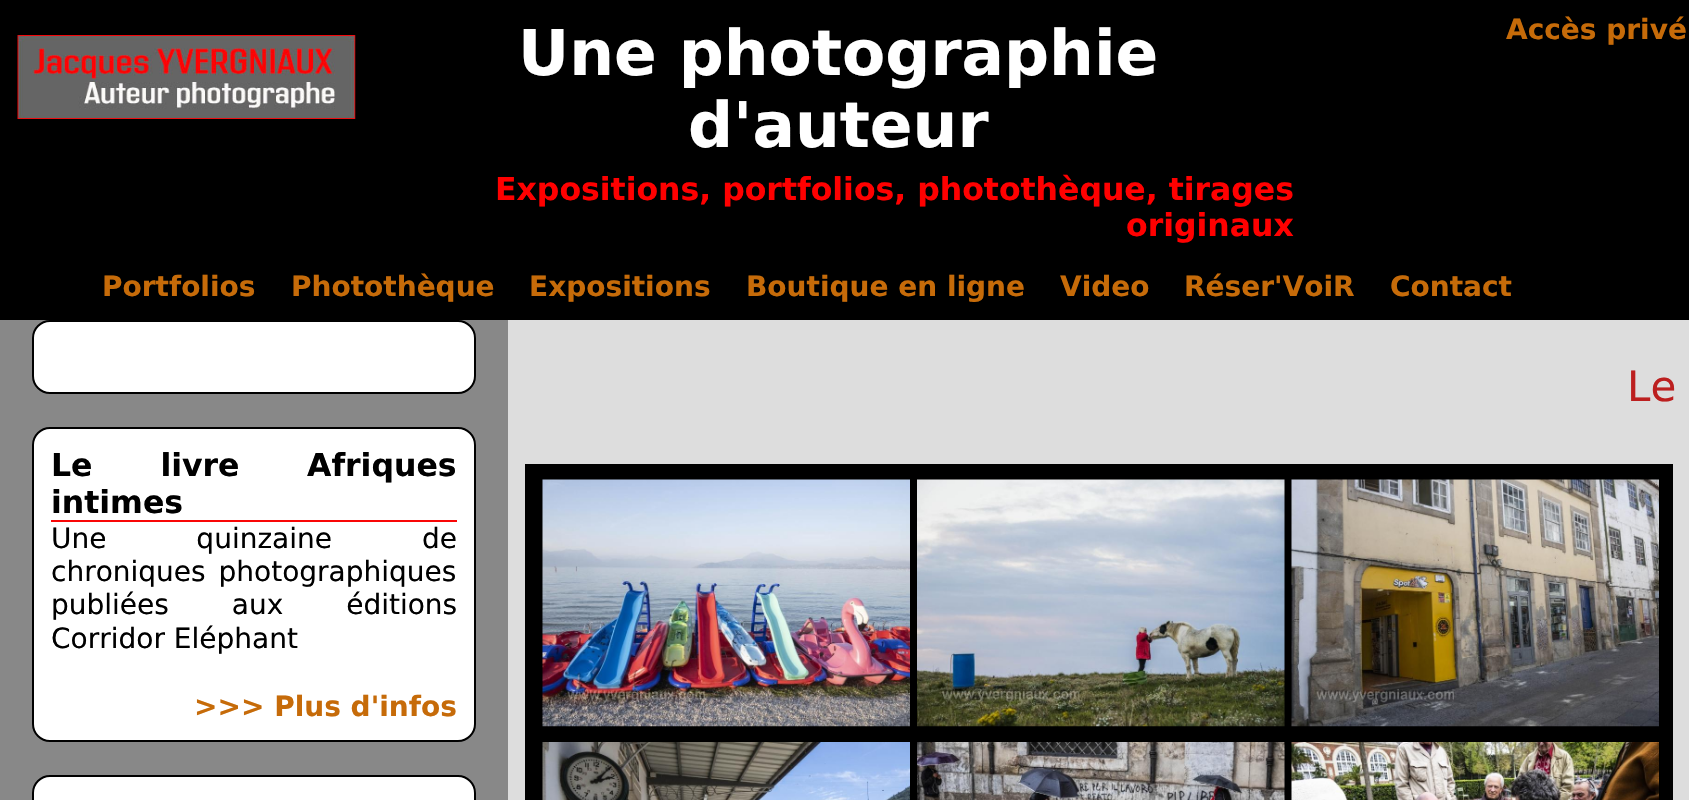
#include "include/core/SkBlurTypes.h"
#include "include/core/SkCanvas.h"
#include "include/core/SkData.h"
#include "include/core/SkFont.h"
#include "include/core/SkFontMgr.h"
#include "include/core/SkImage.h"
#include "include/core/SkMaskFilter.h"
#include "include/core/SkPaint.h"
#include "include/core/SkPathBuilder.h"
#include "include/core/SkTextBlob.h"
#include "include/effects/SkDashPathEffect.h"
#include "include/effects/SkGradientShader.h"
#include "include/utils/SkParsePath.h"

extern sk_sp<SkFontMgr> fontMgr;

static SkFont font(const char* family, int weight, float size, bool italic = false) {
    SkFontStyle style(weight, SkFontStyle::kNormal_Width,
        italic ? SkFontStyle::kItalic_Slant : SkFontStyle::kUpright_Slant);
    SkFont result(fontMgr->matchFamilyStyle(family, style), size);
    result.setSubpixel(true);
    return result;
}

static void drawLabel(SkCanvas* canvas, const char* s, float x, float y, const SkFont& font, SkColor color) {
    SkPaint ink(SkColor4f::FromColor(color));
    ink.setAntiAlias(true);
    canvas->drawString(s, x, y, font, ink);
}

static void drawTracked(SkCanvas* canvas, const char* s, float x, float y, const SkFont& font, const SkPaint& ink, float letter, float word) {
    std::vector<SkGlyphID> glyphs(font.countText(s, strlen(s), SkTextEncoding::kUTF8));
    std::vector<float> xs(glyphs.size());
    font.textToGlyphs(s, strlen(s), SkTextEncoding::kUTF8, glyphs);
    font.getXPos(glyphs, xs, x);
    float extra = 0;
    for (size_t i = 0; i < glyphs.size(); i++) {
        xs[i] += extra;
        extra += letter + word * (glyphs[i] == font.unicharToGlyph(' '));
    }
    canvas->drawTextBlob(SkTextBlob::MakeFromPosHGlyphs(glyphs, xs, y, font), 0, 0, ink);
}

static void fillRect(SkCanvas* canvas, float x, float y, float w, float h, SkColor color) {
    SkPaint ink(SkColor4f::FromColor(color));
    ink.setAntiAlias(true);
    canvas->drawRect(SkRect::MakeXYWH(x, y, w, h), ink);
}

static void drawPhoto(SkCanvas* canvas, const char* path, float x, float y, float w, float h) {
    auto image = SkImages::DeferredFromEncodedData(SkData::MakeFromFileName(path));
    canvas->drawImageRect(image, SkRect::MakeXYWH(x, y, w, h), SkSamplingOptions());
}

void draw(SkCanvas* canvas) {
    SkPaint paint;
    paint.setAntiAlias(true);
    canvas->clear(0xFF000000);
    drawPhoto(canvas, "assets/img1.png", 17, 35, 339, 84);
    SkFont font1 = font("DejaVu Sans", 700, 63);
    drawLabel(canvas, "Une photographie", 518, 75, font1, 0xFFFFFFFF);
    drawLabel(canvas, "d'auteur", 688, 147, font1, 0xFFFFFFFF);
    SkFont font2 = font("DejaVu Sans", 700, 31.5f);
    drawLabel(canvas, "Expositions, portfolios, photothèque, tirages", 495, 200, font2, 0xFFFF0000);
    drawLabel(canvas, "originaux", 1126, 236, font2, 0xFFFF0000);
    SkFont font3 = font("DejaVu Sans", 700, 28);
    drawLabel(canvas, "Accès privé", 1506, 39, font3, 0xFFC66B09);
    drawLabel(canvas, "Portfolios", 102, 296, font3, 0xFFC66B09);
    drawLabel(canvas, "Photothèque", 291, 296, font3, 0xFFC66B09);
    drawLabel(canvas, "Expositions", 529, 296, font3, 0xFFC66B09);
    drawLabel(canvas, "Boutique en ligne", 746, 296, font3, 0xFFC66B09);
    drawLabel(canvas, "Video", 1060, 296, font3, 0xFFC66B09);
    drawLabel(canvas, "Réser'VoiR", 1184, 296, font3, 0xFFC66B09);
    drawLabel(canvas, "Contact", 1390, 296, font3, 0xFFC66B09);
    fillRect(canvas, 0, 320, 508, 480, 0xFF888888);
    fillRect(canvas, 508, 320, 1181, 480, 0xFFDDDDDD);
    SkFont font4 = font("DejaVu Sans", 400, 42);
    drawLabel(canvas, "Le", 1627, 401, font4, 0xFFBC1F1F);
    fillRect(canvas, 525, 464, 1148, 336, 0xFF000000);
    drawPhoto(canvas, "assets/img2.png", 542, 479, 368, 248);
    drawPhoto(canvas, "assets/img3.png", 917, 479, 368, 248);
    drawPhoto(canvas, "assets/img4.png", 1291, 479, 368, 248);
    drawPhoto(canvas, "assets/img5.png", 542, 742, 368, 58);
    drawPhoto(canvas, "assets/img6.png", 917, 742, 368, 58);
    drawPhoto(canvas, "assets/img7.png", 1291, 742, 368, 58);
    paint.setColor(0xFFFFFFFF);
    canvas->drawRoundRect(SkRect::MakeXYWH(33, 321, 442, 72), 17, 17, paint);
    paint.setStroke(true);
    paint.setStrokeWidth(2);
    paint.setColor(0xFF000000);
    canvas->drawRoundRect(SkRect::MakeXYWH(33, 321, 442, 72), 17, 17, paint);
    paint.setStroke(false);
    paint.setColor(0xFFFFFFFF);
    canvas->drawRoundRect(SkRect::MakeXYWH(33, 428, 442, 313), 17, 17, paint);
    paint.setStroke(true);
    paint.setColor(0xFF000000);
    canvas->drawRoundRect(SkRect::MakeXYWH(33, 428, 442, 313), 17, 17, paint);
    fillRect(canvas, 51, 520, 406, 2, 0xFFF90606);
    paint.setStroke(false);
    drawTracked(canvas, "Le livre", 51, 476, font2, paint, 0, 57);
    drawLabel(canvas, "Afriques", 307, 476, font2, 0xFF000000);
    drawLabel(canvas, "intimes", 51, 513, font2, 0xFF000000);
    SkFont font5 = font("DejaVu Sans", 400, 28);
    drawTracked(canvas, "Une quinzaine de", 51, 548, font5, paint, 0, 81);
    drawTracked(canvas, "chroniques photographiques", 51, 581, font5, paint, 0, 4);
    drawTracked(canvas, "publiées aux éditions", 51, 614, font5, paint, 0, 54);
    drawLabel(canvas, "Corridor Eléphant", 51, 648, font5, 0xFF000000);
    drawLabel(canvas, ">>> Plus d'infos", 194, 716, font3, 0xFFC66B09);
    paint.setColor(0xFFFFFFFF);
    canvas->drawRoundRect(SkRect::MakeXYWH(33, 776, 442, 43), 17, 17, paint);
    paint.setStroke(true);
    paint.setColor(0xFF000000);
    canvas->drawRoundRect(SkRect::MakeXYWH(33, 776, 442, 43), 17, 17, paint);
}
